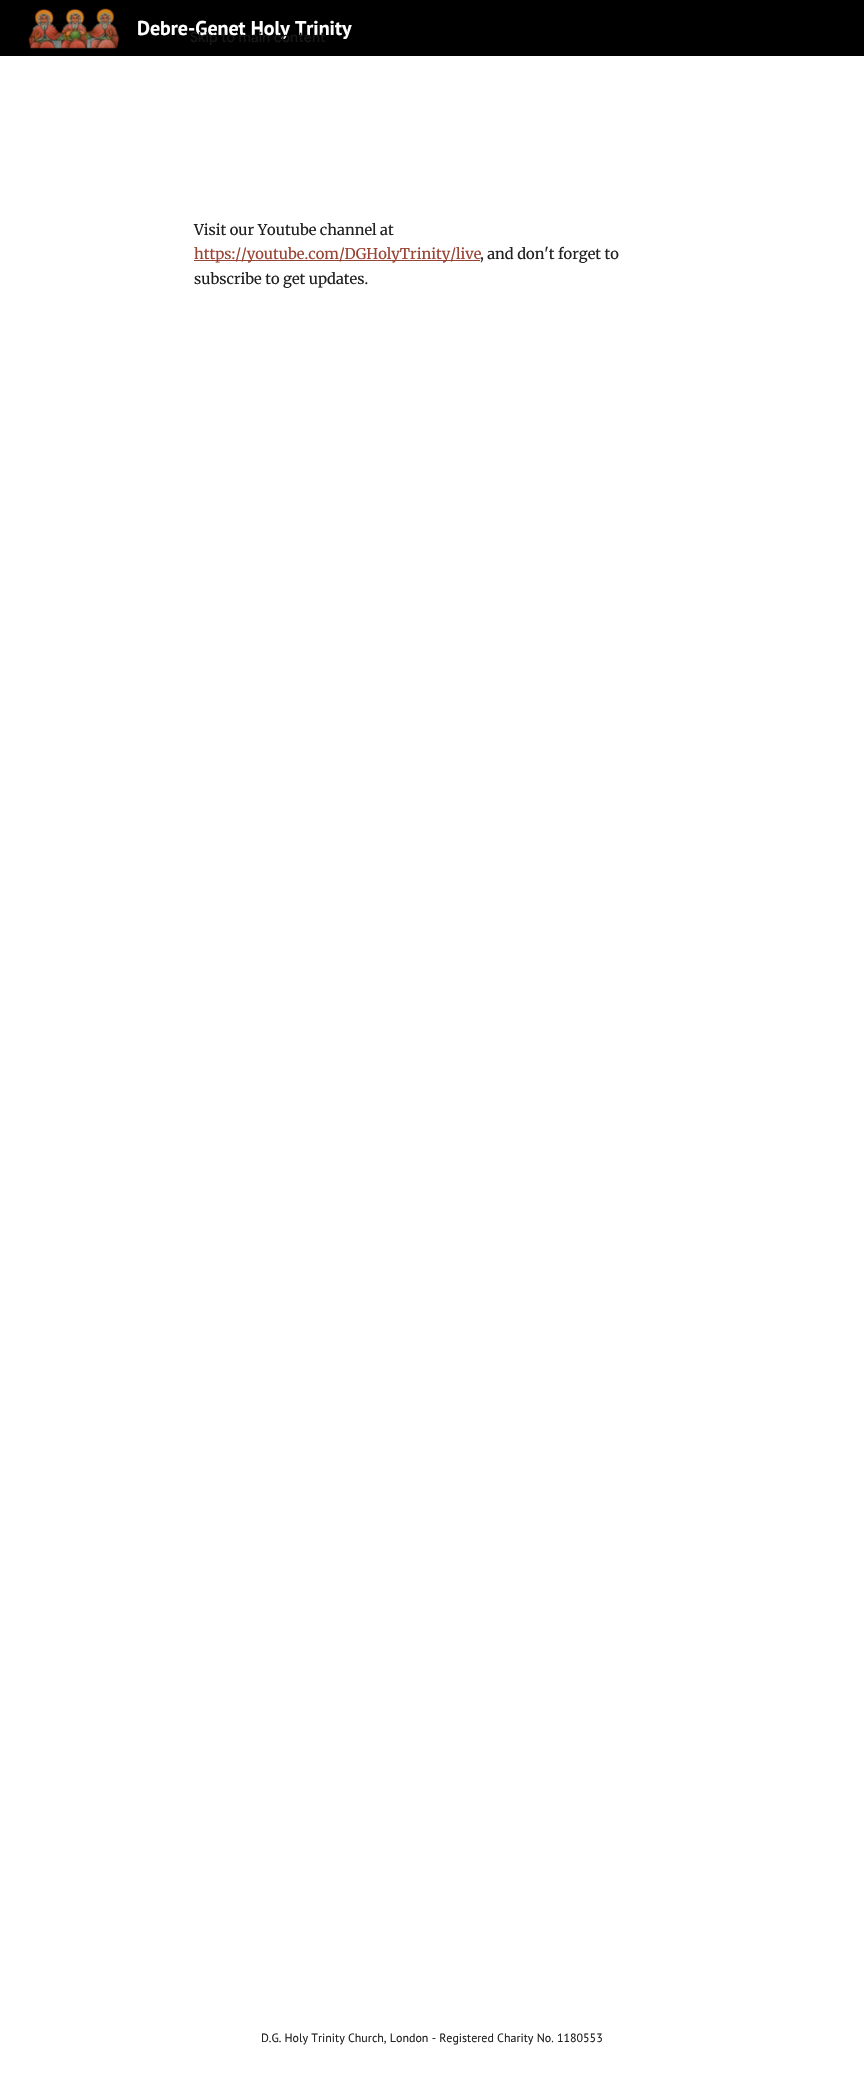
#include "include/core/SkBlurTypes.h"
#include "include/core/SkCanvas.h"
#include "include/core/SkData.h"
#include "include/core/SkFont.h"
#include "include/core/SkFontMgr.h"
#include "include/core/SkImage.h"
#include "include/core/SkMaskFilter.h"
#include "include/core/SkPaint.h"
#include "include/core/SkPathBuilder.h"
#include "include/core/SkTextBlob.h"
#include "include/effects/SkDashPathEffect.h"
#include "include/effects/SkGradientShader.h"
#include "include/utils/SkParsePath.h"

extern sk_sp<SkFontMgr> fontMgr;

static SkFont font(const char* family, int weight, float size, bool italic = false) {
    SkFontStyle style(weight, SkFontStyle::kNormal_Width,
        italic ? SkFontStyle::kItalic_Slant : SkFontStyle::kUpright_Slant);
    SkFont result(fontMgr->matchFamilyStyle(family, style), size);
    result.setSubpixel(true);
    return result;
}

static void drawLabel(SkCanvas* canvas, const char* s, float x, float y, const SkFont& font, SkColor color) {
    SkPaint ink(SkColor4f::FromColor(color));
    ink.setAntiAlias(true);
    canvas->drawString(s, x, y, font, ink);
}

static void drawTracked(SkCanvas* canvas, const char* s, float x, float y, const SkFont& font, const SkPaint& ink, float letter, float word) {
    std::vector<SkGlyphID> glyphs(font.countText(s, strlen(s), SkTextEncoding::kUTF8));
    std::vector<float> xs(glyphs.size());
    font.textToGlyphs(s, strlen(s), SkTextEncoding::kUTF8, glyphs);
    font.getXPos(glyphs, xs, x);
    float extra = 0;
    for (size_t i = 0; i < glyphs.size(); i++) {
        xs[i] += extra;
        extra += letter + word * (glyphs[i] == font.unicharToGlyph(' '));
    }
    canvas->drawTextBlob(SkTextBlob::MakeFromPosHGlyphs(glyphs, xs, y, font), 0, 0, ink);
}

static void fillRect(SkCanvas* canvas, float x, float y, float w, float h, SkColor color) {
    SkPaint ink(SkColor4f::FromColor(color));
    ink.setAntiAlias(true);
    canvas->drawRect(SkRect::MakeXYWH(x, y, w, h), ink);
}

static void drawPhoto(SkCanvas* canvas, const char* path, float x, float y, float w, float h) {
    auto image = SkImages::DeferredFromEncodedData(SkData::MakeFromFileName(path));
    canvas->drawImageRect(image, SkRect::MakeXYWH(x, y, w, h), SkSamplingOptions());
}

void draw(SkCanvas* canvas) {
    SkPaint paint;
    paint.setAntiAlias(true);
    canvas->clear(0xFFFFFFFF);
    fillRect(canvas, 0, 0, 864, 56, 0xFF000000);
    drawPhoto(canvas, "assets/img1.png", 28, 8, 92, 41);
    SkFont font1 = font("PT Sans", 700, 20);
    drawLabel(canvas, "Debre-Genet Holy Trinity", 137, 35, font1, 0xFFFFFFFF);
    SkFont font2 = font("Merriweather", 400, 14.7f);
    drawLabel(canvas, "Visit our Youtube channel at", 194, 235, font2, 0xFF212121);
    fillRect(canvas, 194, 260, 286, 1, 0xFF9A4435);
    drawLabel(canvas, "https://youtube.com/DGHolyTrinity/live", 194, 259, font2, 0xFF9A4435);
    drawLabel(canvas, ", and don't forget to", 480, 259, font2, 0xFF212121);
    drawLabel(canvas, "subscribe to get updates.", 194, 284, font2, 0xFF212121);
    SkFont font3 = font("PT Sans", 400, 12);
    drawLabel(canvas, "D.G. Holy Trinity Church, London - Registered Charity No. 1180553", 261, 2042, font3, 0xFF212121);
    SkFont font4 = font("Google Sans", 500, 14);
    paint.setColor(0xFF161616);
    drawTracked(canvas, "Skip to main content", 190, 42, font4, paint, 0.1f, 0);
}
